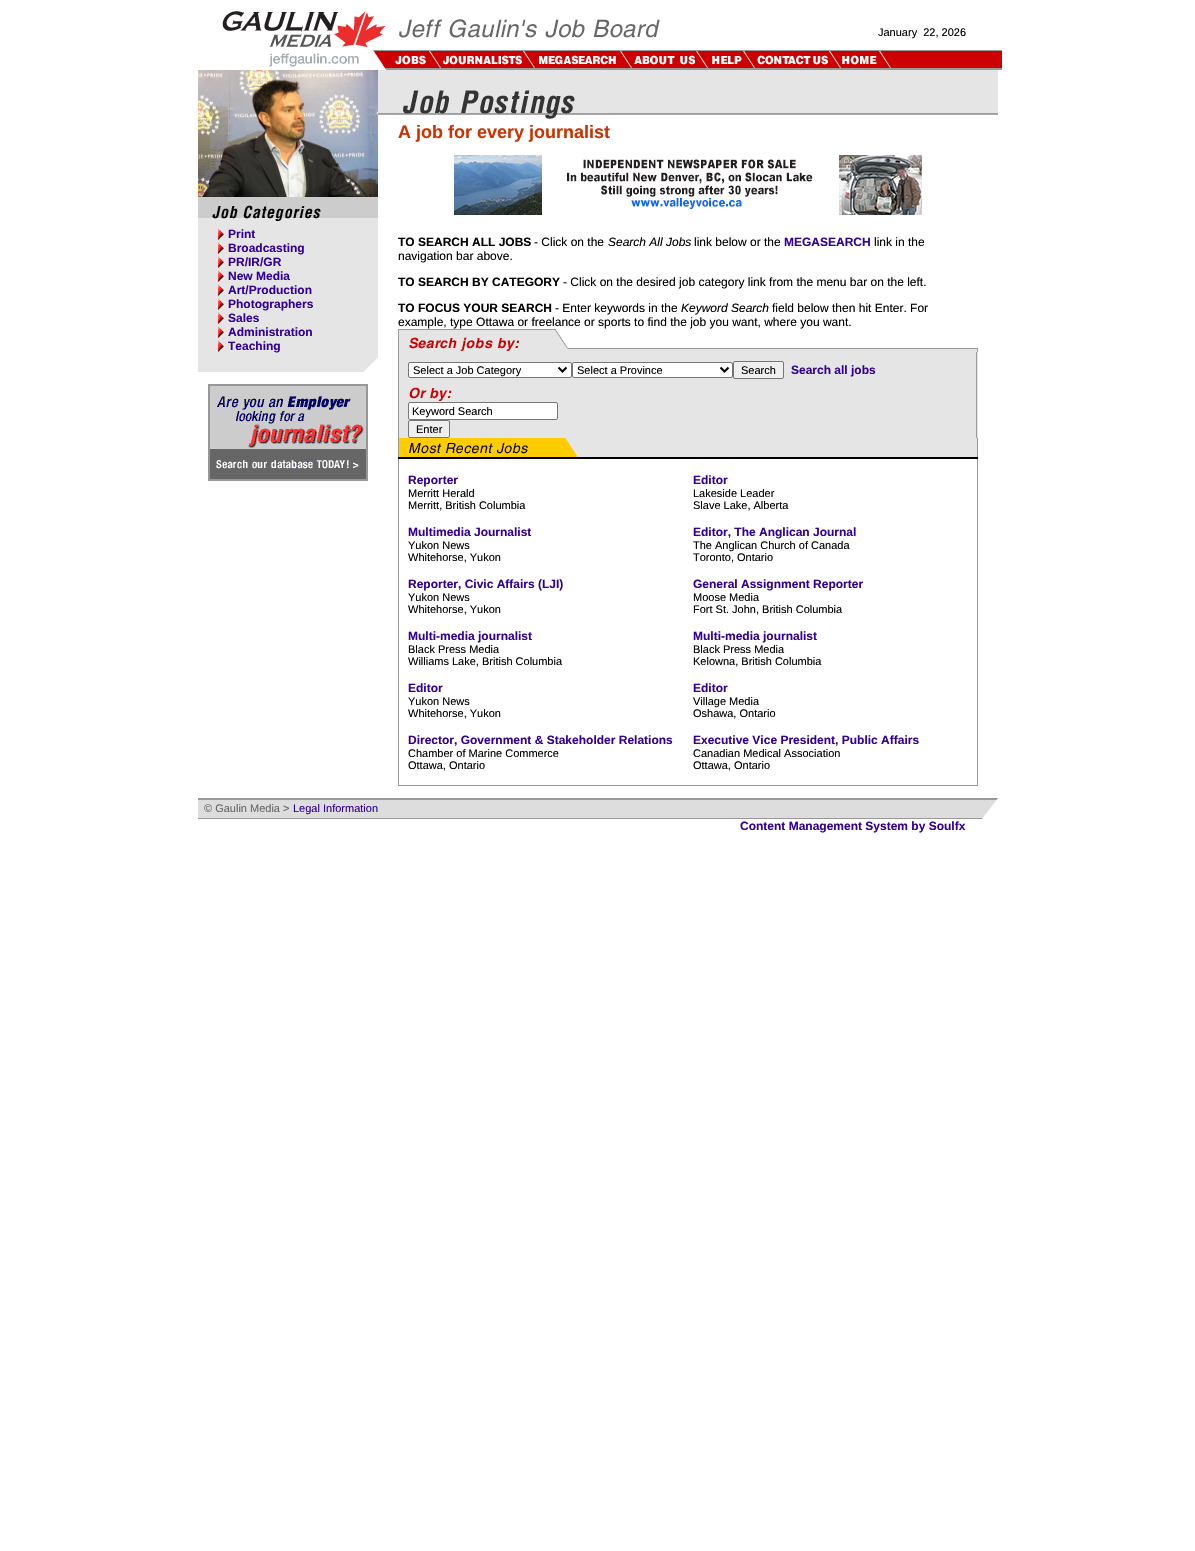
#include "include/core/SkBlurTypes.h"
#include "include/core/SkCanvas.h"
#include "include/core/SkData.h"
#include "include/core/SkFont.h"
#include "include/core/SkFontMgr.h"
#include "include/core/SkImage.h"
#include "include/core/SkMaskFilter.h"
#include "include/core/SkPaint.h"
#include "include/core/SkPathBuilder.h"
#include "include/core/SkTextBlob.h"
#include "include/effects/SkDashPathEffect.h"
#include "include/effects/SkGradientShader.h"
#include "include/utils/SkParsePath.h"

extern sk_sp<SkFontMgr> fontMgr;

static SkFont font(const char* family, int weight, float size, bool italic = false) {
    SkFontStyle style(weight, SkFontStyle::kNormal_Width,
        italic ? SkFontStyle::kItalic_Slant : SkFontStyle::kUpright_Slant);
    SkFont result(fontMgr->matchFamilyStyle(family, style), size);
    result.setSubpixel(true);
    return result;
}

static void drawLabel(SkCanvas* canvas, const char* s, float x, float y, const SkFont& font, SkColor color) {
    SkPaint ink(SkColor4f::FromColor(color));
    ink.setAntiAlias(true);
    canvas->drawString(s, x, y, font, ink);
}

static void fillRect(SkCanvas* canvas, float x, float y, float w, float h, SkColor color) {
    SkPaint ink(SkColor4f::FromColor(color));
    ink.setAntiAlias(true);
    canvas->drawRect(SkRect::MakeXYWH(x, y, w, h), ink);
}

static void drawPhoto(SkCanvas* canvas, const char* path, float x, float y, float w, float h) {
    auto image = SkImages::DeferredFromEncodedData(SkData::MakeFromFileName(path));
    canvas->drawImageRect(image, SkRect::MakeXYWH(x, y, w, h), SkSamplingOptions());
}

static SkPath parsePath(const char* data, bool evenOdd = false) {
    SkPath result = *SkParsePath::FromSVGString(data);
    if (evenOdd) result.setFillType(SkPathFillType::kEvenOdd);
    return result;
}

void draw(SkCanvas* canvas) {
    SkPaint paint;
    paint.setAntiAlias(true);
    canvas->clear(0xFFFFFFFF);
    drawPhoto(canvas, "assets/img1.png", 222, 11, 438, 37);
    SkFont font1 = font("Liberation Sans", 400, 11);
    drawLabel(canvas, "January  22, 2026", 878, 36, font1, 0xFF000000);
    drawPhoto(canvas, "assets/img2.png", 269, 50, 104, 17);
    drawPhoto(canvas, "assets/img3.png", 373, 50, 21, 20);
    drawPhoto(canvas, "assets/img4.png", 394, 50, 34, 20);
    drawPhoto(canvas, "assets/img5.png", 428, 50, 14, 20);
    drawPhoto(canvas, "assets/img6.png", 442, 50, 80, 20);
    drawPhoto(canvas, "assets/img5.png", 522, 50, 14, 20);
    drawPhoto(canvas, "assets/img7.png", 536, 50, 83, 20);
    drawPhoto(canvas, "assets/img5.png", 619, 50, 14, 20);
    drawPhoto(canvas, "assets/img8.png", 633, 50, 62, 20);
    drawPhoto(canvas, "assets/img5.png", 695, 50, 14, 20);
    drawPhoto(canvas, "assets/img9.png", 709, 50, 33, 20);
    drawPhoto(canvas, "assets/img5.png", 742, 50, 14, 20);
    drawPhoto(canvas, "assets/img10.png", 756, 50, 72, 20);
    drawPhoto(canvas, "assets/img5.png", 828, 50, 14, 20);
    drawPhoto(canvas, "assets/img11.png", 842, 50, 36, 20);
    drawPhoto(canvas, "assets/img5.png", 878, 50, 14, 20);
    drawPhoto(canvas, "assets/img12.png", 892, 50, 110, 20);
    drawPhoto(canvas, "assets/img13.png", 198, 70, 180, 127);
    drawPhoto(canvas, "assets/img14.png", 198, 197, 180, 25);
    fillRect(canvas, 198, 222, 180, 150, 0xFFE5E5E5);
    drawPhoto(canvas, "assets/img15.png", 218, 228, 6, 12);
    SkFont font2 = font("Liberation Sans", 700, 12);
    drawLabel(canvas, "Print", 228, 238, font2, 0xFF330099);
    drawPhoto(canvas, "assets/img15.png", 218, 242, 6, 12);
    drawLabel(canvas, "Broadcasting", 228, 252, font2, 0xFF330099);
    drawPhoto(canvas, "assets/img15.png", 218, 256, 6, 12);
    drawLabel(canvas, "PR/IR/GR", 228, 266, font2, 0xFF330099);
    drawPhoto(canvas, "assets/img15.png", 218, 270, 6, 12);
    drawLabel(canvas, "New Media", 228, 280, font2, 0xFF330099);
    drawPhoto(canvas, "assets/img15.png", 218, 284, 6, 12);
    drawLabel(canvas, "Art/Production", 228, 294, font2, 0xFF330099);
    drawPhoto(canvas, "assets/img15.png", 218, 298, 6, 12);
    drawLabel(canvas, "Photographers", 228, 308, font2, 0xFF330099);
    drawPhoto(canvas, "assets/img15.png", 218, 312, 6, 12);
    drawLabel(canvas, "Sales", 228, 322, font2, 0xFF330099);
    drawPhoto(canvas, "assets/img15.png", 218, 326, 6, 12);
    drawLabel(canvas, "Administration", 228, 336, font2, 0xFF330099);
    drawPhoto(canvas, "assets/img15.png", 218, 340, 6, 12);
    drawLabel(canvas, "Teaching", 228, 350, font2, 0xFF330099);
    drawPhoto(canvas, "assets/img16.png", 364, 358, 14, 14);
    drawPhoto(canvas, "assets/img17.png", 208, 384, 160, 97);
    drawPhoto(canvas, "assets/img18.png", 378, 70, 620, 49);
    SkFont font3 = font("Liberation Sans", 700, 18);
    drawLabel(canvas, "A job for every journalist", 398, 138, font3, 0xFFCC3300);
    drawPhoto(canvas, "assets/img19.png", 454, 155, 468, 60);
    drawLabel(canvas, "TO SEARCH ALL JOBS", 398, 246, font2, 0xFF000000);
    SkFont font4 = font("Liberation Sans", 400, 12);
    drawLabel(canvas, "- Click on the", 534, 246, font4, 0xFF000000);
    SkFont font5 = font("Liberation Sans", 400, 12, true);
    drawLabel(canvas, "Search All Jobs", 608, 246, font5, 0xFF000000);
    drawLabel(canvas, "link below or the", 694, 246, font4, 0xFF000000);
    drawLabel(canvas, "MEGASEARCH", 784, 246, font2, 0xFF330099);
    drawLabel(canvas, "link in the", 874, 246, font4, 0xFF000000);
    drawLabel(canvas, "navigation bar above.", 398, 260, font4, 0xFF000000);
    drawLabel(canvas, "TO SEARCH BY CATEGORY", 398, 286, font2, 0xFF000000);
    drawLabel(canvas, "- Click on the desired job category link from the menu bar on the left.", 563, 286, font4, 0xFF000000);
    drawLabel(canvas, "TO FOCUS YOUR SEARCH", 398, 312, font2, 0xFF000000);
    drawLabel(canvas, "- Enter keywords in the", 555, 312, font4, 0xFF000000);
    drawLabel(canvas, "Keyword Search", 681, 312, font5, 0xFF000000);
    drawLabel(canvas, "field below then hit Enter. For", 772, 312, font4, 0xFF000000);
    drawLabel(canvas, "example, type Ottawa or freelance or sports to find the job you want, where you want.", 398, 326, font4, 0xFF000000);
    drawPhoto(canvas, "assets/img20.png", 398, 329, 580, 23);
    fillRect(canvas, 399, 352, 579, 86, 0xFFE5E5E5);
    fillRect(canvas, 398, 352, 1, 86, 0xFF999999);
    paint.setColor(0xFFFFFFFF);
    canvas->drawRoundRect(SkRect::MakeXYWH(408.5f, 362.5f, 163, 15), 1.5f, 1.5f, paint);
    paint.setStroke(true);
    paint.setStrokeWidth(1);
    paint.setColor(0xFF767676);
    canvas->drawRoundRect(SkRect::MakeXYWH(408.5f, 362.5f, 163, 15), 1.5f, 1.5f, paint);
    paint.setStrokeWidth(2);
    paint.setColor(0xFF000000);
    canvas->drawPath(parsePath("M558.5 367.5L562.5 371.5L566.5 367.5"), paint);
    drawLabel(canvas, "Select a Job Category", 413, 374, font1, 0xFF000000);
    paint.setStroke(false);
    paint.setColor(0xFFFFFFFF);
    canvas->drawRoundRect(SkRect::MakeXYWH(572.5f, 362.5f, 160, 15), 1.5f, 1.5f, paint);
    paint.setStroke(true);
    paint.setStrokeWidth(1);
    paint.setColor(0xFF767676);
    canvas->drawRoundRect(SkRect::MakeXYWH(572.5f, 362.5f, 160, 15), 1.5f, 1.5f, paint);
    paint.setStrokeWidth(2);
    paint.setColor(0xFF000000);
    canvas->drawPath(parsePath("M720.5 367.5L724.5 371.5L728.5 367.5"), paint);
    drawLabel(canvas, "Select a Province", 577, 374, font1, 0xFF000000);
    paint.setStroke(false);
    paint.setColor(0xFFEFEFEF);
    canvas->drawRoundRect(SkRect::MakeXYWH(733.5f, 361.5f, 50, 17), 1.5f, 1.5f, paint);
    paint.setStroke(true);
    paint.setStrokeWidth(1);
    paint.setColor(0xFF767676);
    canvas->drawRoundRect(SkRect::MakeXYWH(733.5f, 361.5f, 50, 17), 1.5f, 1.5f, paint);
    drawLabel(canvas, "Search", 741, 374, font1, 0xFF000000);
    drawLabel(canvas, "Search all jobs", 791, 374, font2, 0xFF330099);
    fillRect(canvas, 976, 352, 1, 86, 0xFF999999);
    drawPhoto(canvas, "assets/img21.png", 409, 387, 43, 14);
    paint.setStroke(false);
    paint.setColor(0xFFFFFFFF);
    canvas->drawRoundRect(SkRect::MakeXYWH(408.5f, 402.5f, 149, 17), 1.5f, 1.5f, paint);
    paint.setStroke(true);
    paint.setColor(0xFF767676);
    canvas->drawRoundRect(SkRect::MakeXYWH(408.5f, 402.5f, 149, 17), 1.5f, 1.5f, paint);
    drawLabel(canvas, "Keyword Search", 412, 415, font1, 0xFF000000);
    paint.setStroke(false);
    paint.setColor(0xFFEFEFEF);
    canvas->drawRoundRect(SkRect::MakeXYWH(408.5f, 420.5f, 41, 17), 1.5f, 1.5f, paint);
    paint.setStroke(true);
    paint.setColor(0xFF767676);
    canvas->drawRoundRect(SkRect::MakeXYWH(408.5f, 420.5f, 41, 17), 1.5f, 1.5f, paint);
    drawLabel(canvas, "Enter", 416, 433, font1, 0xFF000000);
    drawPhoto(canvas, "assets/img22.png", 398, 438, 580, 21);
    fillRect(canvas, 398, 459, 1, 326, 0xFF999999);
    drawLabel(canvas, "Reporter", 408, 484, font2, 0xFF330099);
    drawLabel(canvas, "Merritt Herald", 408, 497, font1, 0xFF000000);
    drawLabel(canvas, "Merritt, British Columbia", 408, 509, font1, 0xFF000000);
    drawLabel(canvas, "Editor", 693, 484, font2, 0xFF330099);
    drawLabel(canvas, "Lakeside Leader", 693, 497, font1, 0xFF000000);
    drawLabel(canvas, "Slave Lake, Alberta", 693, 509, font1, 0xFF000000);
    fillRect(canvas, 977, 459, 1, 326, 0xFF999999);
    drawLabel(canvas, "Multimedia Journalist", 408, 536, font2, 0xFF330099);
    drawLabel(canvas, "Yukon News", 408, 549, font1, 0xFF000000);
    drawLabel(canvas, "Whitehorse, Yukon", 408, 561, font1, 0xFF000000);
    drawLabel(canvas, "Editor, The Anglican Journal", 693, 536, font2, 0xFF330099);
    drawLabel(canvas, "The Anglican Church of Canada", 693, 549, font1, 0xFF000000);
    drawLabel(canvas, "Toronto, Ontario", 693, 561, font1, 0xFF000000);
    drawLabel(canvas, "Reporter, Civic Affairs (LJI)", 408, 588, font2, 0xFF330099);
    drawLabel(canvas, "Yukon News", 408, 601, font1, 0xFF000000);
    drawLabel(canvas, "Whitehorse, Yukon", 408, 613, font1, 0xFF000000);
    drawLabel(canvas, "General Assignment Reporter", 693, 588, font2, 0xFF330099);
    drawLabel(canvas, "Moose Media", 693, 601, font1, 0xFF000000);
    drawLabel(canvas, "Fort St. John, British Columbia", 693, 613, font1, 0xFF000000);
    drawLabel(canvas, "Multi-media journalist", 408, 640, font2, 0xFF330099);
    drawLabel(canvas, "Black Press Media", 408, 653, font1, 0xFF000000);
    drawLabel(canvas, "Williams Lake, British Columbia", 408, 665, font1, 0xFF000000);
    drawLabel(canvas, "Multi-media journalist", 693, 640, font2, 0xFF330099);
    drawLabel(canvas, "Black Press Media", 693, 653, font1, 0xFF000000);
    drawLabel(canvas, "Kelowna, British Columbia", 693, 665, font1, 0xFF000000);
    drawLabel(canvas, "Editor", 408, 692, font2, 0xFF330099);
    drawLabel(canvas, "Yukon News", 408, 705, font1, 0xFF000000);
    drawLabel(canvas, "Whitehorse, Yukon", 408, 717, font1, 0xFF000000);
    drawLabel(canvas, "Editor", 693, 692, font2, 0xFF330099);
    drawLabel(canvas, "Village Media", 693, 705, font1, 0xFF000000);
    drawLabel(canvas, "Oshawa, Ontario", 693, 717, font1, 0xFF000000);
    drawLabel(canvas, "Director, Government & Stakeholder Relations", 408, 744, font2, 0xFF330099);
    drawLabel(canvas, "Chamber of Marine Commerce", 408, 757, font1, 0xFF000000);
    drawLabel(canvas, "Ottawa, Ontario", 408, 769, font1, 0xFF000000);
    drawLabel(canvas, "Executive Vice President, Public Affairs", 693, 744, font2, 0xFF330099);
    drawLabel(canvas, "Canadian Medical Association", 693, 757, font1, 0xFF000000);
    drawLabel(canvas, "Ottawa, Ontario", 693, 769, font1, 0xFF000000);
    fillRect(canvas, 398, 785, 580, 1, 0xFF999999);
    fillRect(canvas, 198, 800, 781, 18, 0xFFDDDDDD);
    fillRect(canvas, 198, 798, 781, 2, 0xFF999999);
    drawLabel(canvas, "© Gaulin Media >", 204, 812, font1, 0xFF666666);
    drawLabel(canvas, "Legal Information", 293, 812, font1, 0xFF330099);
    fillRect(canvas, 198, 818, 781, 1, 0xFF999999);
    drawPhoto(canvas, "assets/img23.png", 979, 798, 19, 21);
    drawLabel(canvas, "Content Management System by Soulfx", 740, 830, font2, 0xFF330099);
}
